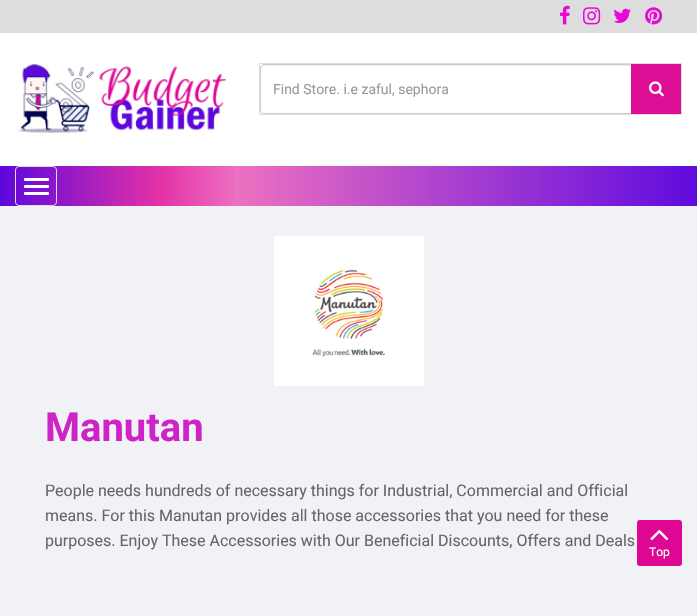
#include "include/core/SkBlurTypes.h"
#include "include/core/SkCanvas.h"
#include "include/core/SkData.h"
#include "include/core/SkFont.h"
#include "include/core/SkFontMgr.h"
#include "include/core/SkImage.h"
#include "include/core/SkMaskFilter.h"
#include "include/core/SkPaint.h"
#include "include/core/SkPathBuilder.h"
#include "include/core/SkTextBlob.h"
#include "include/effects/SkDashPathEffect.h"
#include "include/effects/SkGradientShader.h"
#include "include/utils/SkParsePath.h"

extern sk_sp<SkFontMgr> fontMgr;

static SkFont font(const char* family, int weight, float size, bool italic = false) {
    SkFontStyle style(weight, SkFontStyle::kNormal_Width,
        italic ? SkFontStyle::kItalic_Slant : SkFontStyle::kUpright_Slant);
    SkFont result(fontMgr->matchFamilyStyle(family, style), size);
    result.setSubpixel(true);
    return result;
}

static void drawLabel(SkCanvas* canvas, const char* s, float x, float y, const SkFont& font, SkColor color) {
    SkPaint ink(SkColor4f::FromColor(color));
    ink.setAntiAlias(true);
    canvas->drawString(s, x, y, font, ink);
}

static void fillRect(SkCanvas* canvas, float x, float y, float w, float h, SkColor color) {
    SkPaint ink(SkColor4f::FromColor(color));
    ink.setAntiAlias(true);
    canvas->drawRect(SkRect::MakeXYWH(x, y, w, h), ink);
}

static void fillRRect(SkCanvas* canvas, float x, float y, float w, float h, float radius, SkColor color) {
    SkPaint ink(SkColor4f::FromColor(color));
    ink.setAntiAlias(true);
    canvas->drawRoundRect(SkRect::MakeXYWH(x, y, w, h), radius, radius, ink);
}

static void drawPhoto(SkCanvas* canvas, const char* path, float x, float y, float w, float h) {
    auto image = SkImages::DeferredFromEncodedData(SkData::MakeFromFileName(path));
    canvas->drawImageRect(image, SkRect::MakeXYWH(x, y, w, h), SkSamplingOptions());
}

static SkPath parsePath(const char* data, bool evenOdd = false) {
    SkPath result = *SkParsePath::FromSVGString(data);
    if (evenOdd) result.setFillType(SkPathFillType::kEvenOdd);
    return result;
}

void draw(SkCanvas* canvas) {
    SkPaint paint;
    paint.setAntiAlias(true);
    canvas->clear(0xFFF0F2F5);
    fillRect(canvas, 0, 33, 697, 133, 0xFFFFFFFF);
    fillRect(canvas, 0, 0, 697, 33, 0xFFDDDDDD);
    drawPhoto(canvas, "assets/img1.png", 560, 5, 10, 20);
    drawPhoto(canvas, "assets/img2.png", 583, 7, 18, 18);
    drawPhoto(canvas, "assets/img3.png", 613, 8, 18, 15);
    drawPhoto(canvas, "assets/img4.png", 645, 7, 18, 18);
    drawPhoto(canvas, "assets/img5.png", 18, 64, 208, 69);
    paint.setStroke(true);
    paint.setStrokeWidth(1);
    paint.setColor(0xFFDDDDDD);
    canvas->drawRect(SkRect::MakeXYWH(259.5f, 63.5f, 422, 51), paint);
    paint.setStroke(false);
    paint.setColor(0xFFECECEC);
    canvas->drawPath(parsePath("M264 66H631V65H264C262 65 261 66 261 68V69C261 67 262 66 264 66Z"), paint);
    paint.setStroke(true);
    paint.setColor(0xFFCCCCCC);
    canvas->drawPath(parsePath("M264 64.5H631.5V113.5H264C262 113.5 260.5 112 260.5 110V68C260.5 66 262 64.5 264 64.5Z"), paint);
    SkFont font1 = font("Roboto", 400, 14);
    drawLabel(canvas, "Find Store. i.e zaful, sephora", 273, 94, font1, 0xFF999999);
    fillRect(canvas, 631, 64, 50, 50, 0xFFDE0F97);
    drawPhoto(canvas, "assets/img6.png", 649, 81, 15, 16);
    paint.setStroke(false);
    {
        const SkColor colors[] = {0xFF5D07DD, 0xFFE332A6, 0xFFEC70C1, 0xFF600BDE};
        const float stops[] = {0, 0.23f, 0.34f, 1};
        const SkPoint ends[] = {{0, 186}, {697, 186}};
        paint.setShader(SkGradientShader::MakeLinear(ends, colors, stops, 4, SkTileMode::kClamp));
        paint.setAlpha(255);
    }
    canvas->drawRect(SkRect::MakeXYWH(0, 166, 697, 40), paint);
    paint.setStroke(true);
    paint.setShader(nullptr);
    paint.setColor(0xFFDDDDDD);
    canvas->drawRoundRect(SkRect::MakeXYWH(15.5f, 166.5f, 41, 39), 3.5f, 3.5f, paint);
    fillRRect(canvas, 24, 178, 25, 3, 1, 0xFFFFFFFF);
    fillRRect(canvas, 24, 185, 25, 3, 1, 0xFFFFFFFF);
    fillRRect(canvas, 24, 192, 25, 3, 1, 0xFFFFFFFF);
    drawPhoto(canvas, "assets/img7.png", 274, 236, 150, 150);
    SkFont font2 = font("Roboto", 700, 40);
    drawLabel(canvas, "Manutan", 45, 441, font2, 0xFFCE23C7);
    SkFont font3 = font("Roboto", 400, 16);
    drawLabel(canvas, "People needs hundreds of necessary things for Industrial, Commercial and Official", 45, 496, font3, 0xFF666666);
    drawLabel(canvas, "means. For this Manutan provides all those accessories that you need for these", 45, 521, font3, 0xFF666666);
    drawLabel(canvas, "purposes. Enjoy These Accessories with Our Beneficial Discounts, Offers and Deals", 45, 546, font3, 0xFF666666);
    fillRRect(canvas, 637, 520, 45, 46, 3, 0xFFDD0794);
    drawPhoto(canvas, "assets/img8.png", 650, 529, 19, 12);
    SkFont font4 = font("Roboto", 400, 12);
    drawLabel(canvas, "Top", 649, 556, font4, 0xFFFFFFFF);
}
